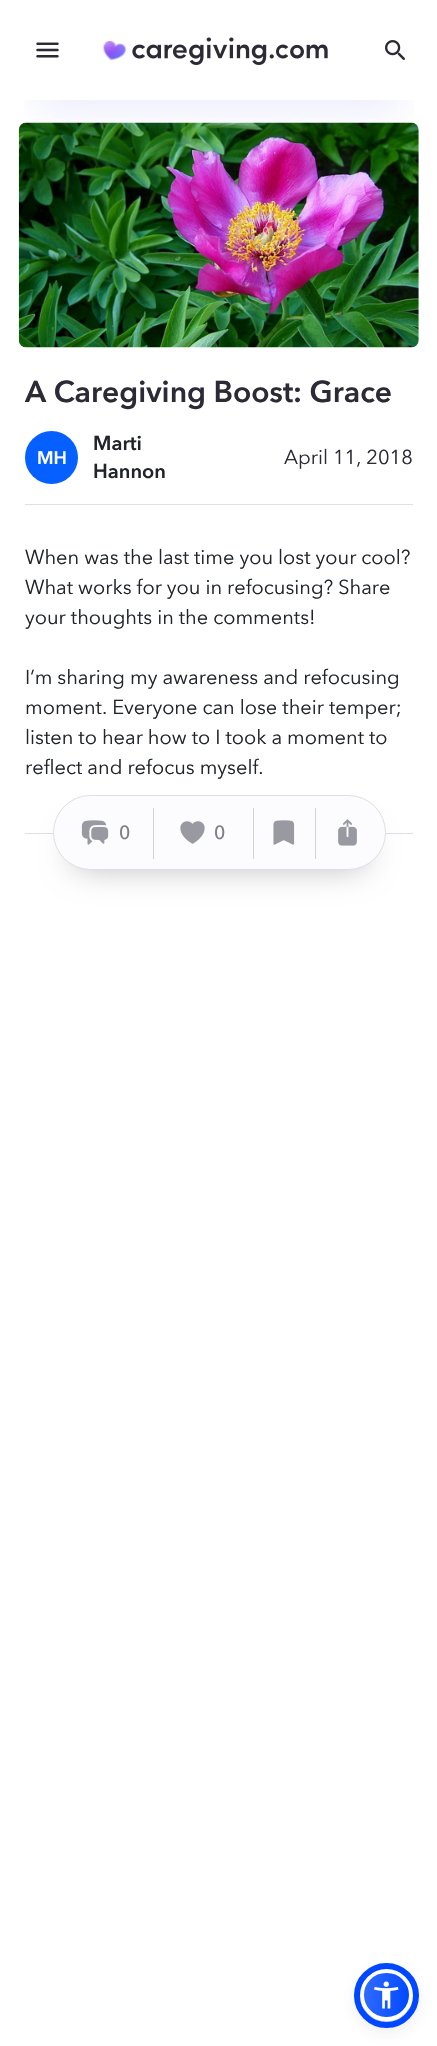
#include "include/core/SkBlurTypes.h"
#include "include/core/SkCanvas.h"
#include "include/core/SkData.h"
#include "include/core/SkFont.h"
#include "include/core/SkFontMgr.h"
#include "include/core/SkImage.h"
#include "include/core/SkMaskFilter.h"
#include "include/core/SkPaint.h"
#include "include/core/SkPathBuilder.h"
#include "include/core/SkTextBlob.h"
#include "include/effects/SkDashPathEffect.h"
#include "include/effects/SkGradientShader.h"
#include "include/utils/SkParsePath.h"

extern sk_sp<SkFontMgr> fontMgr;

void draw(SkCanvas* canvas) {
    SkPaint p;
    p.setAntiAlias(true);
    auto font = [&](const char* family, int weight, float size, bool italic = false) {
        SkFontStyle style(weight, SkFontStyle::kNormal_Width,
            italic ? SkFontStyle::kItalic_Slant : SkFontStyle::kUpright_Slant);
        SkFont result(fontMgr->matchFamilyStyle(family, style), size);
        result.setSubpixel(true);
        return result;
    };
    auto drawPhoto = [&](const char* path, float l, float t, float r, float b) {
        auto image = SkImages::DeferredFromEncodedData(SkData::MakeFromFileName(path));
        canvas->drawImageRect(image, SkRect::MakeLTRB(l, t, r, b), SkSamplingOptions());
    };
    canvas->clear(0xFFFFFFFF);
    drawPhoto("media/5.png", 18, 122, 419, 348);
    canvas->save();
    canvas->clipRect(SkRect::MakeLTRB(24, 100, 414, 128));
    p.setColor(0x334E61ED);
    p.setMaskFilter(SkMaskFilter::MakeBlur(kNormal_SkBlurStyle, 20));
    canvas->drawRect(SkRect::MakeLTRB(38, 78, 400, 103), p);
    p.setMaskFilter(nullptr);
    canvas->restore();
    drawPhoto("media/1.png", 36, 42, 59, 58);
    drawPhoto("media/2.png", 103, 40, 127, 61);
    drawPhoto("media/3.png", 132, 37, 328, 65);
    drawPhoto("media/4.png", 385, 40, 405, 60);
    auto font1 = font("Avenir Next", 600, 30);
    p.setColor(0xFF2B2A35);
    canvas->drawString("A Caregiving Boost: Grace", 25, 402, font1, p);
    p.setColor(0xFF0560FF);
    canvas->drawCircle(51.5f, 457.5f, 26.5f, p);
    auto font2 = font("Avenir Next", 600, 18);
    p.setColor(0xFFFFFFFF);
    canvas->drawString("MH", 37, 464, font2, p);
    auto font3 = font("Avenir Next", 600, 20);
    p.setColor(0xFF212529);
    canvas->drawString("Marti", 93, 450, font3, p);
    canvas->drawString("Hannon", 93, 478, font3, p);
    auto font4 = font("Avenir Next", 400, 20);
    p.setColor(0xFF2B2A35);
    canvas->drawString("April 11, 2018", 284, 464, font4, p);
    p.setColor(0xFFDDDFE5);
    canvas->drawRect(SkRect::MakeLTRB(25, 504, 413, 505), p);
    p.setColor(0xFF212529);
    {
        const struct { const char* s; float x, y; } items[] = {
            {"When was the last time you lost your cool?", 25, 564},
            {"What works for you in refocusing? Share", 25, 594},
            {"your thoughts in the comments!", 25, 624},
            {"I’m sharing my awareness and refocusing", 25, 684},
            {"moment. Everyone can lose their temper;", 25, 714},
            {"listen to hear how to I took a moment to", 25, 744},
            {"reflect and refocus myself.", 25, 774},
        };
        for (auto [s, x, y] : items) {
            canvas->drawString(s, x, y, font4, p);
        }
    }
    p.setColor(0xFFDDDFE5);
    canvas->drawRect(SkRect::MakeLTRB(25, 833, 413, 834), p);
    p.setColor(0x40000000);
    p.setMaskFilter(SkMaskFilter::MakeBlur(kNormal_SkBlurStyle, 15.5f));
    canvas->drawRoundRect(SkRect::MakeLTRB(71, 831, 368, 869), 19, 19, p);
    p.setMaskFilter(nullptr);
    p.setColor(0xFFFCFCFF);
    canvas->drawRoundRect(SkRect::MakeLTRB(53.5f, 795.5f, 385.5f, 869.5f), 37, 37, p);
    p.setStyle(SkPaint::kStroke_Style);
    p.setStrokeWidth(1);
    p.setColor(0xFFDDDFE5);
    canvas->drawRoundRect(SkRect::MakeLTRB(53.5f, 795.5f, 385.5f, 869.5f), 37, 37, p);
    p.setStyle(SkPaint::kFill_Style);
    p.setColor(0xFFD2D2D7);
    canvas->drawRect(SkRect::MakeLTRB(153, 808, 154, 859), p);
    drawPhoto("media/6.png", 81, 820, 109, 845);
    auto font5 = font("Avenir Next", 500, 19);
    p.setColor(0xFF7F7E86);
    canvas->drawString("0", 119, 839, font5, p);
    p.setColor(0xFFD2D2D7);
    canvas->drawRect(SkRect::MakeLTRB(253, 808, 254, 859), p);
    drawPhoto("media/7.png", 180, 821, 205, 844);
    p.setColor(0xFF7F7E86);
    canvas->drawString("0", 214, 839, font5, p);
    p.setColor(0xFFD2D2D7);
    canvas->drawRect(SkRect::MakeLTRB(315, 808, 316, 859), p);
    drawPhoto("media/8.png", 273, 820, 295, 845);
    drawPhoto("media/9.png", 338, 819, 357, 846);
    p.setColor(0x335D6494);
    p.setMaskFilter(SkMaskFilter::MakeBlur(kNormal_SkBlurStyle, 2.5f));
    canvas->drawRoundRect(SkRect::MakeLTRB(360, 1971, 413, 2024), 26.5f, 26.5f, p);
    p.setMaskFilter(nullptr);
    p.setColor(0x26252C61);
    p.setMaskFilter(SkMaskFilter::MakeBlur(kNormal_SkBlurStyle, 9.5f));
    canvas->drawRoundRect(SkRect::MakeLTRB(360, 1975, 413, 2028), 26.5f, 26.5f, p);
    p.setMaskFilter(nullptr);
    canvas->save();
    canvas->clipPath(SkPathBuilder().moveTo(386, 1969).lineTo(387, 1969).cubicTo(401.5f, 1969, 413, 1980.5f, 413, 1995).cubicTo(413, 2009.5f, 401.5f, 2021, 387, 2021).lineTo(386, 2021).cubicTo(371.5f, 2021, 360, 2009.5f, 360, 1995).cubicTo(360, 1980.5f, 371.5f, 1969, 386, 1969).close().detach(), true);
    {
        const SkColor colors[] = {0xFF326CFF, 0xFF0048FF};
        const float stops[] = {0, 1};
        const SkPoint ends[] = {{362, 1992}, {411, 1998}};
        p.setShader(SkGradientShader::MakeLinear(ends, colors, stops, 2, SkTileMode::kClamp));
        p.setAlpha(255);
    }
    canvas->drawRect(SkRect::MakeLTRB(364, 1973, 409, 2018), p);
    canvas->restore();
    p.setStyle(SkPaint::kStroke_Style);
    p.setStrokeWidth(4);
    p.setShader(nullptr);
    p.setColor(0xFFFFFFFF);
    canvas->drawRoundRect(SkRect::MakeLTRB(362, 1971, 411, 2019), 24, 24, p);
    p.setStrokeWidth(6);
    p.setColor(0xFF0048FF);
    canvas->drawCircle(386.5f, 1995.5f, 29.5f, p);
    drawPhoto("media/10.png", 374, 1981, 399, 2009);
}
